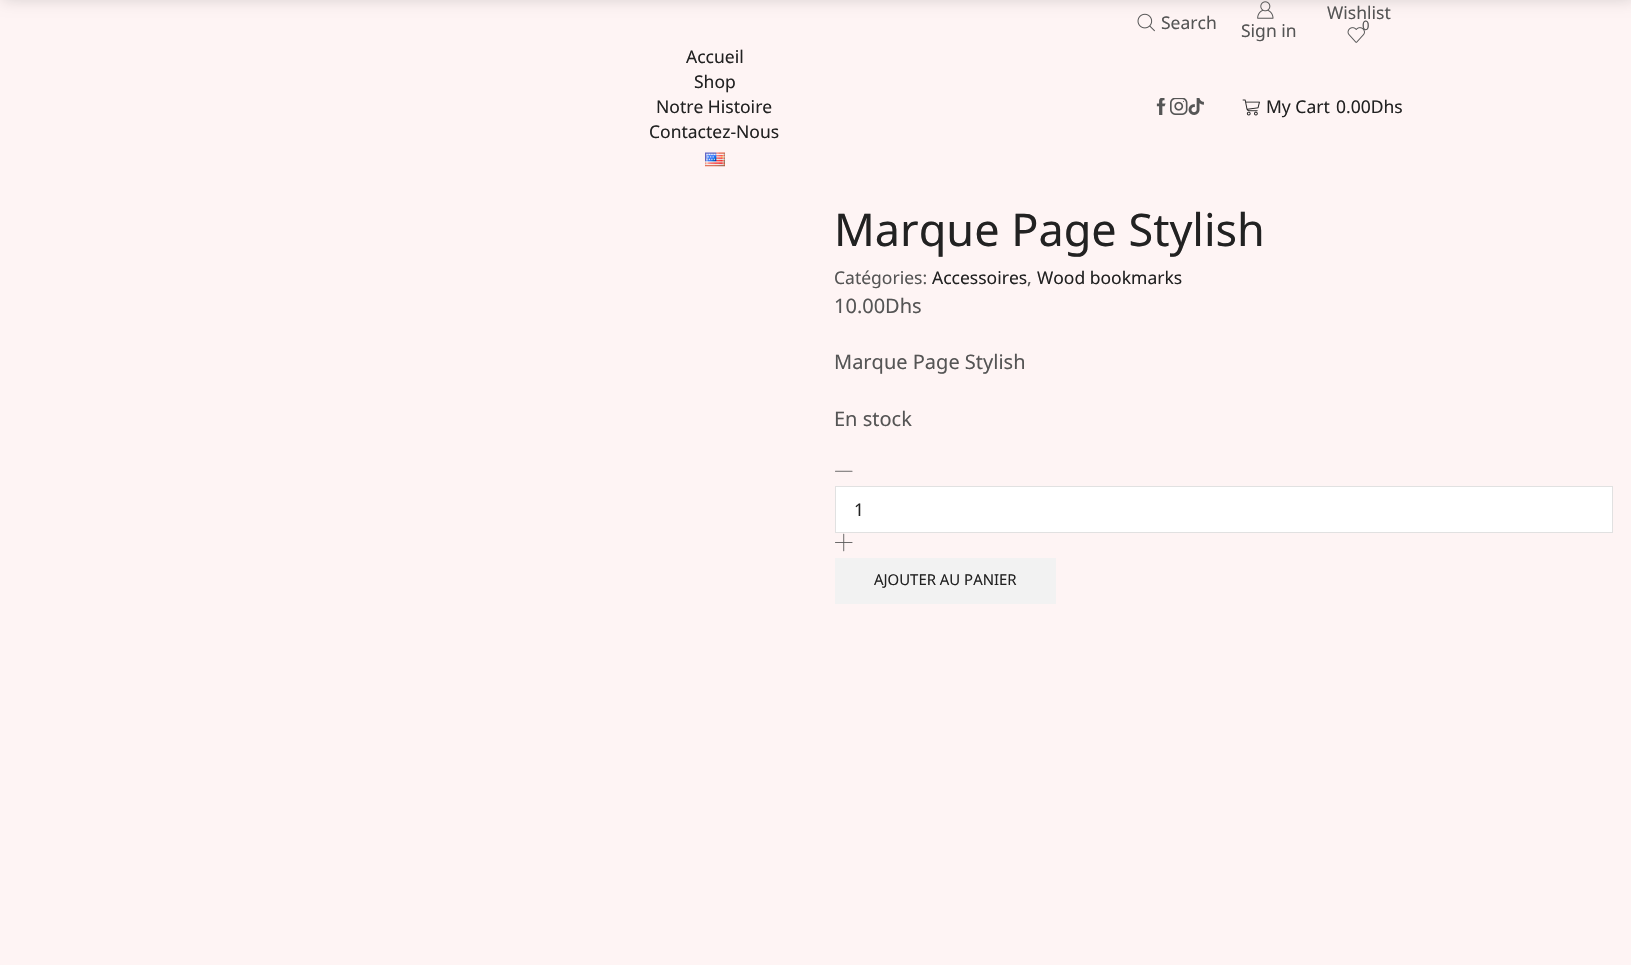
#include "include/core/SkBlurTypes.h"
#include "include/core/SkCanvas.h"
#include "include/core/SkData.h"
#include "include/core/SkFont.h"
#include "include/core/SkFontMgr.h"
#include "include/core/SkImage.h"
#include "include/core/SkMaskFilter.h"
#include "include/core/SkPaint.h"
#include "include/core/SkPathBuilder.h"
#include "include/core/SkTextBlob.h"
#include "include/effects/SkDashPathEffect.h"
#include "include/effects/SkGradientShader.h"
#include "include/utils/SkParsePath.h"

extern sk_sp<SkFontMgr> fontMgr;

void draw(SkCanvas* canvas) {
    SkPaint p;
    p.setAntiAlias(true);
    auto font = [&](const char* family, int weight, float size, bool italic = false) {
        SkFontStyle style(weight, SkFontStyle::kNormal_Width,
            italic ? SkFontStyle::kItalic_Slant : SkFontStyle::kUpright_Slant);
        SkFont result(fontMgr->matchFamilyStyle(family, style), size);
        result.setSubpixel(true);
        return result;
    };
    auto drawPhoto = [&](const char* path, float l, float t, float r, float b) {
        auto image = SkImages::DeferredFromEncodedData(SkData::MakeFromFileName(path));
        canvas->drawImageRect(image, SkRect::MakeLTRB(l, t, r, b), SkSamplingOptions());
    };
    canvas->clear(0xFFFEF4F4);
    p.setColor(0x26000000);
    p.setMaskFilter(SkMaskFilter::MakeBlur(kNormal_SkBlurStyle, 7.5f));
    canvas->drawRect(SkRect::MakeLTRB(3, -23, 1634, 0), p);
    p.setMaskFilter(nullptr);
    drawPhoto("media/1.png", 1137, 13, 1155, 32);
    auto font1 = font("Noto Sans", 400, 17.5f);
    p.setColor(0xFF555555);
    canvas->drawString("Search", 1161, 29, font1, p);
    canvas->drawString("Wishlist", 1327, 19, font1, p);
    drawPhoto("media/2.png", 1347, 27, 1365, 43);
    auto font2 = font("Noto Sans", 400, 13);
    canvas->drawString("0", 1362, 30, font2, p);
    drawPhoto("media/3.png", 1257, 1, 1274, 19);
    canvas->drawString("Sign in", 1241, 37, font1, p);
    p.setColor(0xFF222222);
    {
        const struct { const char* s; float x, y; } items[] = {
            {"Accueil", 686, 63},
            {"Shop", 694, 88},
            {"Notre Histoire", 656, 113},
            {"Contactez-Nous", 649, 138},
        };
        for (auto [s, x, y] : items) {
            canvas->drawString(s, x, y, font1, p);
        }
    }
    drawPhoto("media/4.png", 705, 152, 725, 167);
    drawPhoto("media/5.png", 1156, 98, 1166, 115);
    drawPhoto("media/6.png", 1170, 98, 1188, 115);
    drawPhoto("media/7.png", 1188, 98, 1204, 115);
    drawPhoto("media/8.png", 1242, 99, 1260, 116);
    canvas->drawString("My Cart", 1266, 113, font1, p);
    canvas->drawString("0.00Dhs", 1336, 113, font1, p);
    auto font3 = font("Noto Sans", 400, 45);
    canvas->drawString("Marque Page Stylish", 834, 246, font3, p);
    p.setColor(0xFF555555);
    canvas->drawString("Catégories:", 834, 284, font1, p);
    p.setColor(0xFF222222);
    canvas->drawString("Accessoires", 932, 284, font1, p);
    p.setColor(0xFF555555);
    canvas->drawString(",", 1027, 284, font1, p);
    p.setColor(0xFF222222);
    canvas->drawString("Wood bookmarks", 1037, 284, font1, p);
    auto font4 = font("Noto Sans", 400, 20);
    p.setColor(0xFF555555);
    {
        const struct { const char* s; float x, y; } items[] = {
            {"10.00Dhs", 834, 313},
            {"Marque Page Stylish", 834, 369},
            {"En stock", 834, 426},
        };
        for (auto [s, x, y] : items) {
            canvas->drawString(s, x, y, font4, p);
        }
    }
    drawPhoto("media/9.png", 835, 470, 853, 472);
    p.setColor(0xFFFFFFFF);
    canvas->drawRect(SkRect::MakeLTRB(835.5f, 486.5f, 1612.5f, 532.5f), p);
    p.setStyle(SkPaint::kStroke_Style);
    p.setStrokeWidth(1);
    p.setColor(0xFFE1E1E1);
    canvas->drawRect(SkRect::MakeLTRB(835.5f, 486.5f, 1612.5f, 532.5f), p);
    p.setStyle(SkPaint::kFill_Style);
    p.setColor(0xFF222222);
    canvas->drawString("1", 854, 516, font1, p);
    drawPhoto("media/10.png", 835, 533, 853, 552);
    p.setColor(0xFFF2F2F2);
    canvas->drawRect(SkRect::MakeLTRB(835, 558, 1056, 604), p);
    auto font5 = font("Noto Sans", 400, 14.9f);
    p.setColor(0xFF222222);
    canvas->drawString("AJOUTER AU PANIER", 874, 585, font5, p);
}
